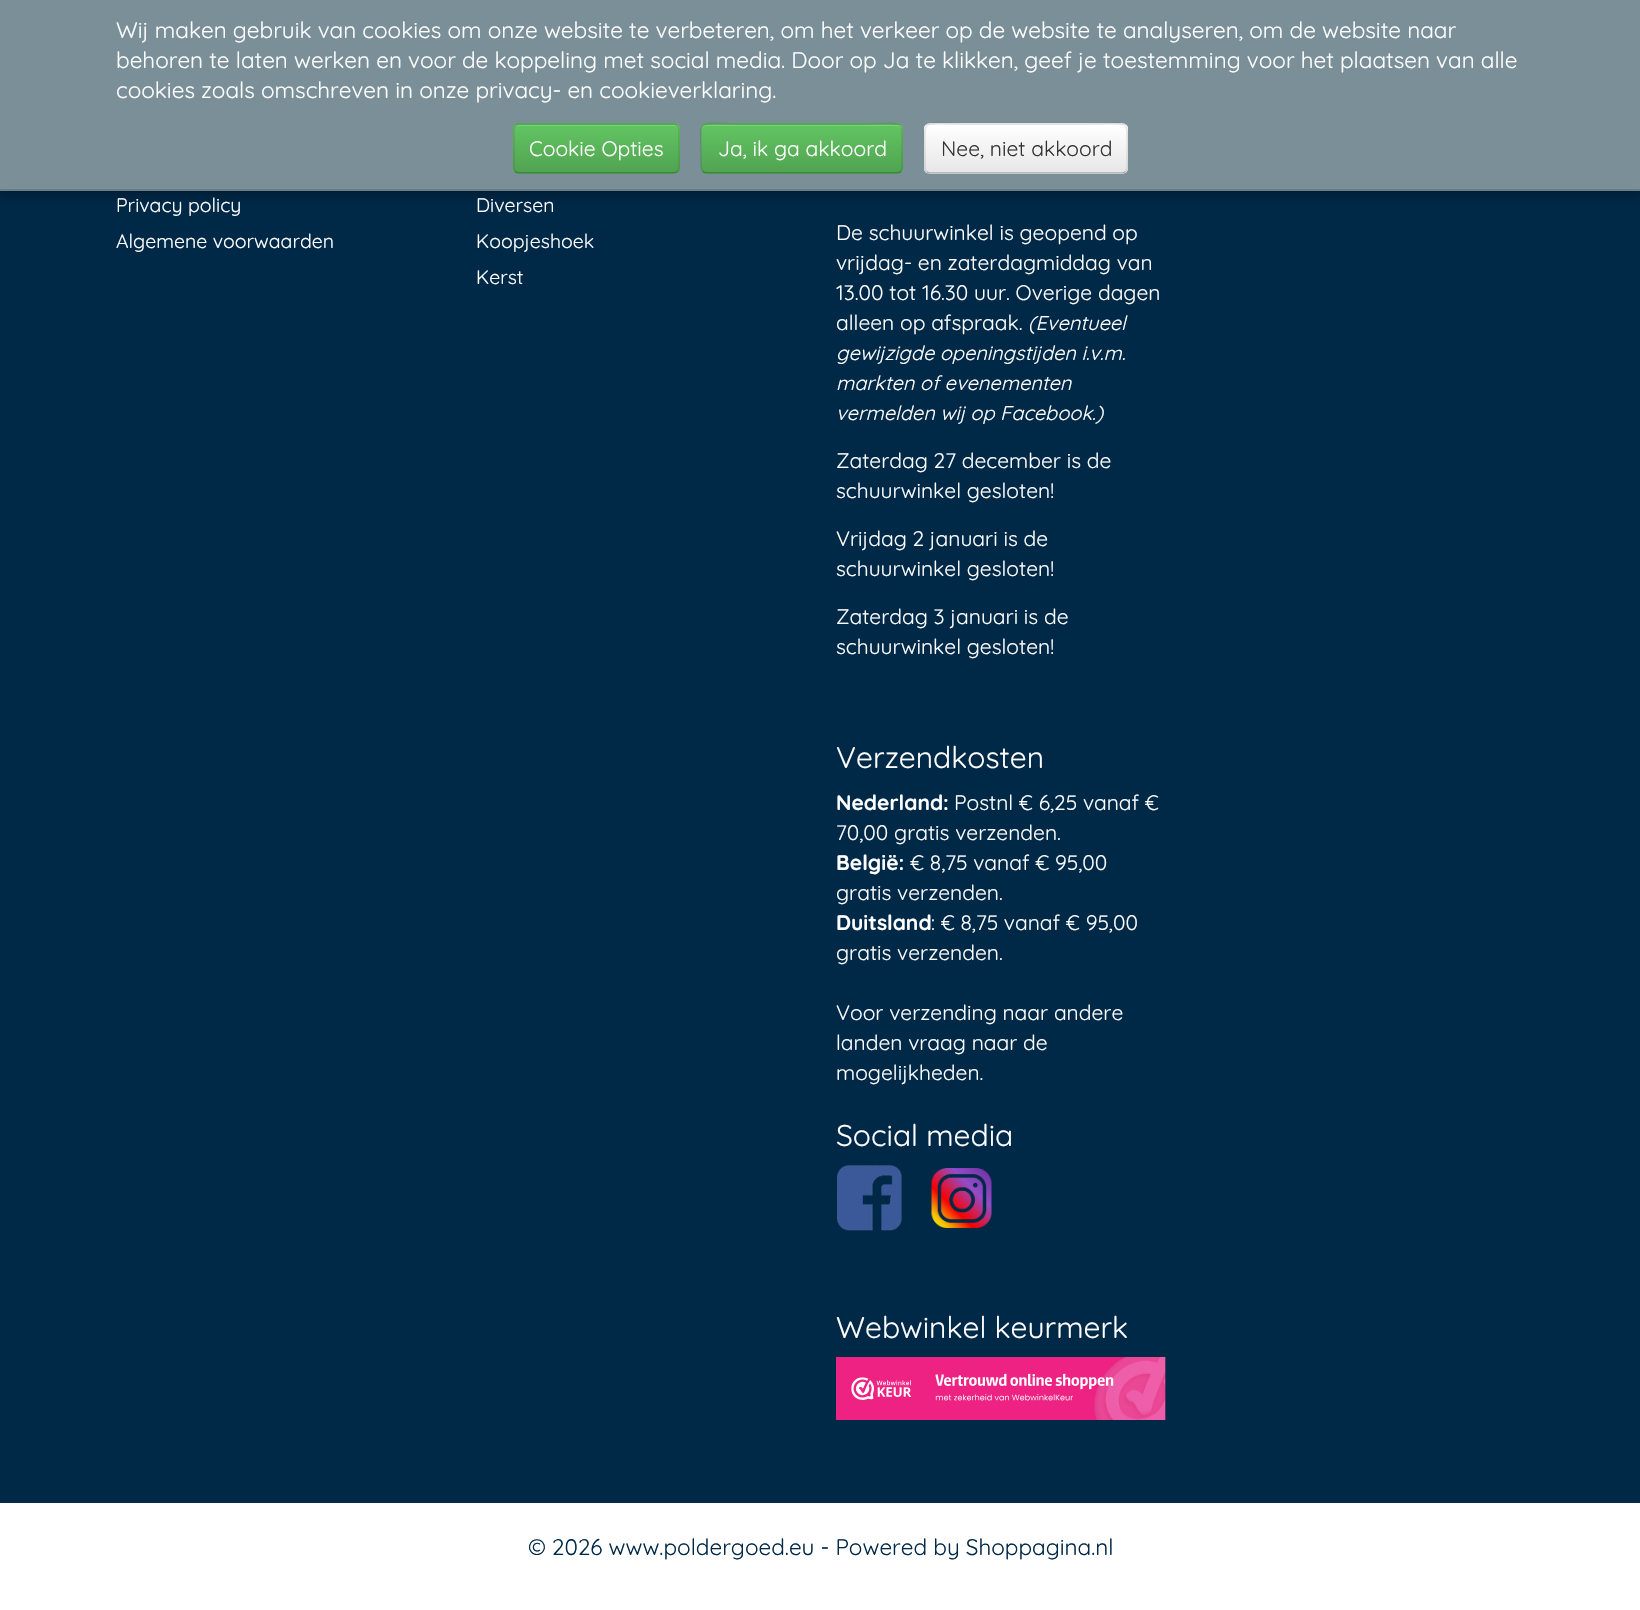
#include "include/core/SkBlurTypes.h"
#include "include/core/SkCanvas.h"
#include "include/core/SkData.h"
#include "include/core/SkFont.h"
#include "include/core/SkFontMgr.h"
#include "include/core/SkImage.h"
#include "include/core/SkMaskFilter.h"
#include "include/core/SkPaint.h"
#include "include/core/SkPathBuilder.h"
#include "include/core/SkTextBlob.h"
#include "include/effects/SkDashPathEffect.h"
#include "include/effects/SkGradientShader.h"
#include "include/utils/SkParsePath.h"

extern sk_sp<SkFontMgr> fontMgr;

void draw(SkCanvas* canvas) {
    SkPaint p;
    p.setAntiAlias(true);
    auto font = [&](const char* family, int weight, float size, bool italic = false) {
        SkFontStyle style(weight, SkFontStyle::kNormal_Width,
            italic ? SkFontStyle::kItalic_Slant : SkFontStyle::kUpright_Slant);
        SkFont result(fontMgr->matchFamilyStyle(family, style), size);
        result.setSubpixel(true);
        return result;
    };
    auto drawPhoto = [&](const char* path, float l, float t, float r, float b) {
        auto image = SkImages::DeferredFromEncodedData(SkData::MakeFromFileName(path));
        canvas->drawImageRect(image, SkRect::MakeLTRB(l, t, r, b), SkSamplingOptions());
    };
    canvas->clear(0xFFFFFFFF);
    p.setColor(0xFF002847);
    canvas->drawRect(SkRect::MakeLTRB(0, 191, 1640, 1503), p);
    p.setColor(0x4D000000);
    p.setMaskFilter(SkMaskFilter::MakeBlur(kNormal_SkBlurStyle, 5));
    canvas->drawRect(SkRect::MakeLTRB(0, 5, 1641, 195), p);
    p.setMaskFilter(nullptr);
    p.setColor(0xFF7A8F98);
    canvas->drawRect(SkRect::MakeLTRB(0, 0, 1640, 189), p);
    p.setColor(0xFF697E87);
    canvas->drawRect(SkRect::MakeLTRB(0, 189, 1640, 191), p);
    auto font1 = font("Quicksand", 400, 22.5f);
    p.setColor(0xFFFFFFFF);
    {
        const struct { const char* s; float x, y; } items[] = {
            {"Wij maken gebruik van cookies om onze website te verbeteren, om het verkeer op de website te analyseren, om de website naar", 116, 38},
            {"behoren te laten werken en voor de koppeling met social media. Door op Ja te klikken, geef je toestemming voor het plaatsen van alle", 116, 68},
            {"cookies zoals omschreven in onze privacy- en cookieverklaring.", 116, 98},
        };
        for (auto [s, x, y] : items) {
            canvas->drawString(s, x, y, font1, p);
        }
    }
    p.setColor(0xFF5BB75B);
    canvas->drawRoundRect(SkRect::MakeLTRB(513, 123, 680, 174), 6, 6, p);
    canvas->save();
    canvas->clipPath(SkPathBuilder().moveTo(519, 123).lineTo(674, 123).cubicTo(677.5f, 123, 680, 125.5f, 680, 129).lineTo(680, 168).cubicTo(680, 171.5f, 677.5f, 174, 674, 174).lineTo(519, 174).cubicTo(515.5f, 174, 513, 171.5f, 513, 168).lineTo(513, 129).cubicTo(513, 125.5f, 515.5f, 123, 519, 123).close().detach(), true);
    {
        const SkColor colors[] = {0xFF62C462, 0xFF51A351};
        const float stops[] = {0, 1};
        const SkPoint ends[] = {{596, 125}, {596, 173}};
        p.setShader(SkGradientShader::MakeLinear(ends, colors, stops, 2, SkTileMode::kClamp));
        p.setAlpha(255);
    }
    canvas->drawRect(SkRect::MakeLTRB(513, 125, 680, 173), p);
    canvas->restore();
    p.setShader(nullptr);
    p.setColor(0xFF81D081);
    canvas->drawPath(SkPathBuilder().moveTo(519, 126).lineTo(674, 126).cubicTo(676, 126, 678, 128, 678, 130).cubicTo(678, 127, 676, 125, 673, 125).lineTo(520, 125).cubicTo(518, 125, 517, 126, 516, 127).close().detach(), p);
    p.setStyle(SkPaint::kStroke_Style);
    p.setStrokeWidth(1.5f);
    p.setColor(0x40000000);
    canvas->drawPath(SkPathBuilder().moveTo(677, 171.5f).cubicTo(676, 172.5f, 675, 173, 673.5f, 173).lineTo(519, 173).cubicTo(517.5f, 173, 516.5f, 172.5f, 515.5f, 171.5f).detach(), p);
    p.setColor(0x1A000000);
    canvas->drawPath(SkPathBuilder().moveTo(515.5f, 171.5f).cubicTo(514.5f, 170.5f, 514, 169.5f, 514, 168).lineTo(514, 129).cubicTo(514, 127.5f, 514.5f, 126.5f, 515.5f, 125.5f).cubicTo(516.5f, 124.5f, 517.5f, 124, 519, 124).lineTo(673.5f, 124).cubicTo(675, 124, 676, 124.5f, 677, 125.5f).cubicTo(678, 126.5f, 679, 127.5f, 679, 129).lineTo(679, 168).cubicTo(679, 169.5f, 678, 170.5f, 677, 171.5f).detach(), p);
    auto font2 = font("Quicksand", 400, 21);
    p.setStyle(SkPaint::kFill_Style);
    p.setColor(0xFFFFFFFF);
    canvas->drawString("Cookie Opties", 529, 156, font2, p);
    p.setColor(0xFF5BB75B);
    canvas->drawRoundRect(SkRect::MakeLTRB(701, 123, 903, 174), 6, 6, p);
    canvas->save();
    canvas->clipPath(SkPathBuilder().moveTo(707, 123).lineTo(897, 123).cubicTo(900.5f, 123, 903, 125.5f, 903, 129).lineTo(903, 168).cubicTo(903, 171.5f, 900.5f, 174, 897, 174).lineTo(707, 174).cubicTo(703.5f, 174, 701, 171.5f, 701, 168).lineTo(701, 129).cubicTo(701, 125.5f, 703.5f, 123, 707, 123).close().detach(), true);
    {
        const SkColor colors[] = {0xFF62C462, 0xFF51A351};
        const float stops[] = {0, 1};
        const SkPoint ends[] = {{802, 125}, {802, 173}};
        p.setShader(SkGradientShader::MakeLinear(ends, colors, stops, 2, SkTileMode::kClamp));
        p.setAlpha(255);
    }
    canvas->drawRect(SkRect::MakeLTRB(701, 125, 903, 173), p);
    canvas->restore();
    p.setShader(nullptr);
    p.setColor(0xFF81D081);
    canvas->drawPath(SkPathBuilder().moveTo(706, 126).lineTo(897, 126).cubicTo(899, 126, 902, 128, 902, 130).cubicTo(902, 127, 900, 125, 897, 125).lineTo(707, 125).cubicTo(704, 125, 702, 127, 702, 130).cubicTo(702, 128, 704, 126, 706, 126).close().detach(), p);
    p.setStyle(SkPaint::kStroke_Style);
    p.setColor(0x40000000);
    canvas->drawPath(SkPathBuilder().moveTo(900.5f, 171.5f).cubicTo(899.5f, 172.5f, 898.5f, 173, 897, 173).lineTo(706.5f, 173).cubicTo(705, 173, 704, 172.5f, 703, 171.5f).detach(), p);
    p.setColor(0x1A000000);
    canvas->drawPath(SkPathBuilder().moveTo(703, 171.5f).cubicTo(700.5f, 169, 701, 164.5f, 701, 161.5f).lineTo(701, 155).cubicTo(701, 116, 695, 124, 738, 124).lineTo(865, 124).cubicTo(908.5f, 124, 902, 116, 902, 155).lineTo(902, 161.5f).cubicTo(902, 164.5f, 903, 169, 900.5f, 171.5f).detach(), p);
    p.setStyle(SkPaint::kFill_Style);
    p.setColor(0xFFFFFFFF);
    canvas->drawString("Ja, ik ga akkoord", 718, 156, font2, p);
    p.setColor(0xFFF5F5F5);
    canvas->drawRoundRect(SkRect::MakeLTRB(924, 123, 1128, 174), 6, 6, p);
    canvas->save();
    canvas->clipPath(SkPathBuilder().moveTo(930, 123).lineTo(1122, 123).cubicTo(1125.5f, 123, 1128, 125.5f, 1128, 129).lineTo(1128, 168).cubicTo(1128, 171.5f, 1125.5f, 174, 1122, 174).lineTo(930, 174).cubicTo(926.5f, 174, 924, 171.5f, 924, 168).lineTo(924, 129).cubicTo(924, 125.5f, 926.5f, 123, 930, 123).close().detach(), true);
    {
        const SkColor colors[] = {0xFFFFFFFF, 0xFFE6E6E6};
        const float stops[] = {0, 1};
        const SkPoint ends[] = {{1026, 125}, {1026, 173}};
        p.setShader(SkGradientShader::MakeLinear(ends, colors, stops, 2, SkTileMode::kClamp));
        p.setAlpha(255);
    }
    canvas->drawRect(SkRect::MakeLTRB(924, 125, 1128, 173), p);
    canvas->restore();
    p.setShader(nullptr);
    p.setColor(0x33FFFFFF);
    canvas->drawPath(SkPathBuilder().moveTo(930, 126).lineTo(1122, 126).cubicTo(1124, 126, 1126, 128, 1126, 130).lineTo(1126, 171).cubicTo(1127, 170, 1127, 169, 1127, 168).lineTo(1127, 130).cubicTo(1127, 127, 1125, 125, 1122, 125).lineTo(931, 125).cubicTo(928, 125, 926, 127, 926, 130).cubicTo(926, 128, 928, 126, 930, 126).close().detach(), p);
    p.setStyle(SkPaint::kStroke_Style);
    p.setColor(0x40000000);
    canvas->drawPath(SkPathBuilder().moveTo(1125.5f, 171.5f).cubicTo(1124.5f, 172.5f, 1123.5f, 173, 1122, 173).lineTo(930, 173).cubicTo(928.5f, 173, 927.5f, 172.5f, 926.5f, 171.5f).detach(), p);
    p.setColor(0x1A000000);
    canvas->drawPath(SkPathBuilder().moveTo(926.5f, 171.5f).cubicTo(924, 169, 925, 164.5f, 925, 161.5f).lineTo(925, 155).cubicTo(925, 116, 918.5f, 124, 962, 124).lineTo(1090, 124).cubicTo(1133.5f, 124, 1127, 116, 1127, 155).lineTo(1127, 161.5f).cubicTo(1127, 164.5f, 1128, 169, 1125.5f, 171.5f).detach(), p);
    p.setStyle(SkPaint::kFill_Style);
    p.setColor(0xFF333333);
    canvas->drawString("Nee, niet akkoord", 941, 156, font2, p);
    auto font3 = font("Quicksand", 400, 19.5f);
    p.setColor(0xFFFFFFFF);
    {
        const struct { const char* s; float x, y; } items[] = {
            {"Privacy policy", 116, 212},
            {"Algemene voorwaarden", 116, 248},
            {"Diversen", 476, 212},
            {"Koopjeshoek", 476, 248},
            {"Kerst", 476, 284},
        };
        for (auto [s, x, y] : items) {
            canvas->drawString(s, x, y, font3, p);
        }
    }
    {
        const struct { const char* s; float x, y; } items[] = {
            {"De schuurwinkel is geopend op", 836, 240},
            {"vrijdag- en zaterdagmiddag van", 836, 270},
            {"13.00 tot 16.30 uur. Overige dagen", 836, 300},
            {"alleen op afspraak.", 836, 330},
        };
        for (auto [s, x, y] : items) {
            canvas->drawString(s, x, y, font2, p);
        }
    }
    auto font4 = font("Quicksand", 400, 20, true);
    {
        const struct { const char* s; float x, y; } items[] = {
            {"(Eventueel", 1028, 330},
            {"gewijzigde openingstijden i.v.m.", 836, 360},
            {"markten of evenementen", 836, 390},
            {"vermelden wij op Facebook.)", 836, 420},
        };
        for (auto [s, x, y] : items) {
            canvas->drawString(s, x, y, font4, p);
        }
    }
    {
        const struct { const char* s; float x, y; } items[] = {
            {"Zaterdag 27 december is de", 836, 468},
            {"schuurwinkel gesloten!", 836, 498},
            {"Vrijdag 2 januari is de", 836, 546},
            {"schuurwinkel gesloten!", 836, 576},
            {"Zaterdag 3 januari is de", 836, 624},
            {"schuurwinkel gesloten!", 836, 654},
        };
        for (auto [s, x, y] : items) {
            canvas->drawString(s, x, y, font2, p);
        }
    }
    auto font5 = font("Quicksand", 400, 30);
    canvas->drawString("Verzendkosten", 836, 768, font5, p);
    auto font6 = font("Quicksand", 700, 21);
    canvas->drawString("Nederland:", 836, 810, font6, p);
    canvas->drawString("Postnl € 6,25 vanaf €", 954, 810, font2, p);
    canvas->drawString("70,00 gratis verzenden.", 836, 840, font2, p);
    canvas->drawString("België:", 836, 870, font6, p);
    canvas->drawString("€ 8,75 vanaf € 95,00", 910, 870, font2, p);
    canvas->drawString("gratis verzenden.", 836, 900, font2, p);
    canvas->drawString("Duitsland", 836, 930, font6, p);
    {
        const struct { const char* s; float x, y; } items[] = {
            {": € 8,75 vanaf € 95,00", 931, 930},
            {"gratis verzenden.", 836, 960},
            {"Voor verzending naar andere", 836, 1020},
            {"landen vraag naar de", 836, 1050},
            {"mogelijkheden.", 836, 1080},
        };
        for (auto [s, x, y] : items) {
            canvas->drawString(s, x, y, font2, p);
        }
    }
    canvas->drawString("Social media", 836, 1146, font5, p);
    drawPhoto("media/1.png", 837, 1165, 902, 1231);
    drawPhoto("media/2.png", 931, 1168, 992, 1228);
    canvas->drawString("Webwinkel keurmerk", 836, 1338, font5, p);
    drawPhoto("media/3.png", 836, 1357, 1166, 1420);
    p.setColor(0xFF002847);
    canvas->drawString("© 2026 www.poldergoed.eu - Powered by Shoppagina.nl", 528, 1555, font1, p);
}
